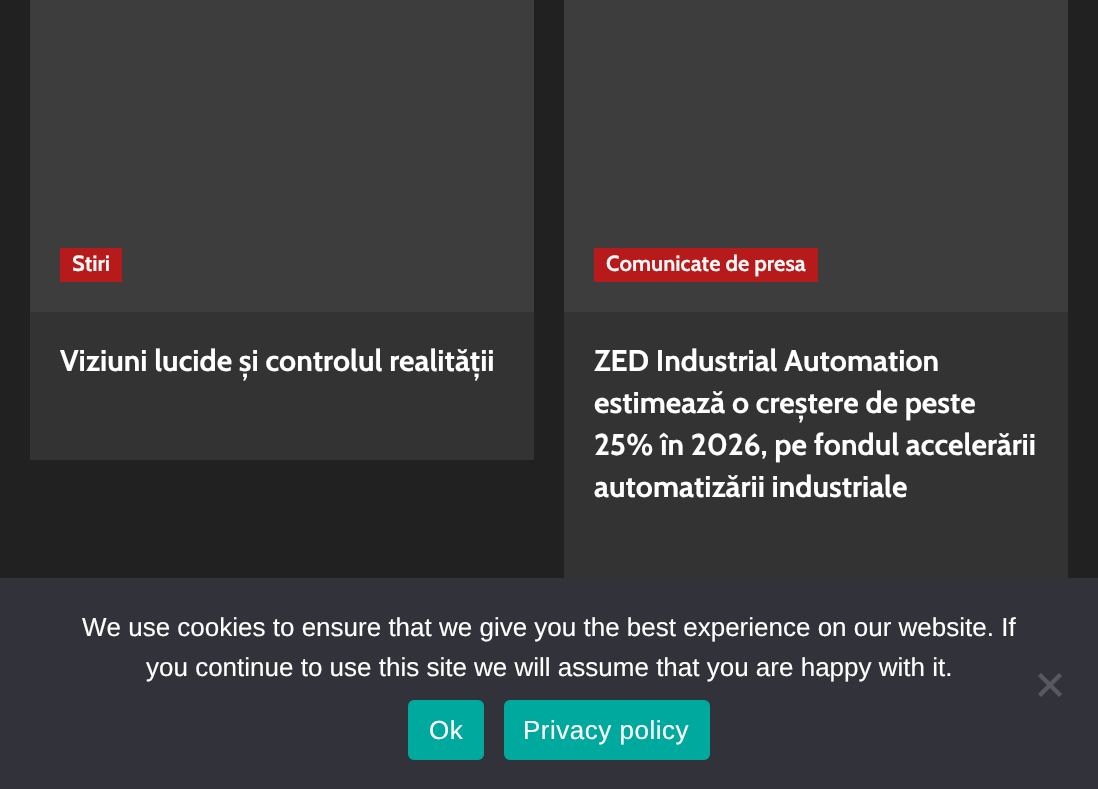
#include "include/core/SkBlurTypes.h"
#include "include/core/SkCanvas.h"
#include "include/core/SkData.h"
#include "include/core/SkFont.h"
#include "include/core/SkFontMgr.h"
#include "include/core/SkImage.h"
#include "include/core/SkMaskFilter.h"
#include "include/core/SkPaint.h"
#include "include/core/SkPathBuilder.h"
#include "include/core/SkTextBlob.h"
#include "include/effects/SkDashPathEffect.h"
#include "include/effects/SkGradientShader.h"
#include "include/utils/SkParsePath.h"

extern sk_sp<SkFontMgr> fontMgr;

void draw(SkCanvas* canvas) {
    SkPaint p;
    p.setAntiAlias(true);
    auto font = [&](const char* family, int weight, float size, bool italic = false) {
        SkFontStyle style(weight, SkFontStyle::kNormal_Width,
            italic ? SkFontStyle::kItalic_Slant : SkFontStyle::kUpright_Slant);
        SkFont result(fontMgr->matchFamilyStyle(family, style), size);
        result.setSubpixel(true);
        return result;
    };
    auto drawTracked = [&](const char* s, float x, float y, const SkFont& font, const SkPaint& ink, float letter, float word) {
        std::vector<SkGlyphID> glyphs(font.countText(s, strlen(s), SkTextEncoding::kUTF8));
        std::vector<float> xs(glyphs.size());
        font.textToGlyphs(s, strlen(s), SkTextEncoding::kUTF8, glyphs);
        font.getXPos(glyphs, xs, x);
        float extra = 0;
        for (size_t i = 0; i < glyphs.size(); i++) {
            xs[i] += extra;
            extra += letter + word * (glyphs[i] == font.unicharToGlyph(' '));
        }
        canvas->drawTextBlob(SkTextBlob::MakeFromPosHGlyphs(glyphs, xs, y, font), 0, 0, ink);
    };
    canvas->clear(0xFF212121);
    {
        const struct { float l, t, r, b; SkColor color; } items[] = {
            {30, 312, 534, 460, 0xFF333333},
            {30, 0, 534, 312, 0xFF3D3D3D},
            {60, 248, 122, 282, 0xFFB61A1A},
        };
        for (auto [l, t, r, b, color] : items) {
            p.setColor(color);
            canvas->drawRect(SkRect::MakeLTRB(l, t, r, b), p);
        }
    }
    auto font1 = font("Cabin", 700, 22);
    p.setColor(0xFFF7F7F7);
    canvas->drawString("Stiri", 72, 271, font1, p);
    auto font2 = font("Cabin", 700, 30);
    p.setColor(0xFFFFFFFF);
    canvas->drawString("Viziuni lucide și controlul realității", 60, 371, font2, p);
    {
        const struct { float l, t, r, b; SkColor color; } items[] = {
            {564, 312, 1068, 578, 0xFF333333},
            {564, 0, 1068, 312, 0xFF3D3D3D},
            {594, 248, 818, 282, 0xFFB61A1A},
        };
        for (auto [l, t, r, b, color] : items) {
            p.setColor(color);
            canvas->drawRect(SkRect::MakeLTRB(l, t, r, b), p);
        }
    }
    p.setColor(0xFFF7F7F7);
    canvas->drawString("Comunicate de presa", 606, 271, font1, p);
    p.setColor(0xFFFFFFFF);
    {
        const struct { const char* s; float x, y; } items[] = {
            {"ZED Industrial Automation", 594, 371},
            {"estimează o creștere de peste", 594, 413},
            {"25% în 2026, pe fondul accelerării", 594, 455},
            {"automatizării industriale", 594, 497},
        };
        for (auto [s, x, y] : items) {
            canvas->drawString(s, x, y, font2, p);
        }
    }
    p.setColor(0xFF32323A);
    canvas->drawRect(SkRect::MakeLTRB(0, 578, 1098, 789), p);
    auto font3 = font("Liberation Sans", 400, 26);
    p.setColor(0xFFFFFFFF);
    canvas->drawString("We use cookies to ensure that we give you the best experience on our website. If", 82, 636, font3, p);
    canvas->drawString("you continue to use this site we will assume that you are happy with it.", 146, 676, font3, p);
    p.setColor(0xFF59595D);
    canvas->drawPath(SkPathBuilder().moveTo(1059, 673).lineTo(1062, 676).lineTo(1041, 697).lineTo(1038, 694).close().detach(), p);
    canvas->drawPath(SkPathBuilder().moveTo(1038, 676).lineTo(1041, 673).lineTo(1062, 694).lineTo(1059, 697).close().detach(), p);
    p.setColor(0xFF00A99D);
    canvas->drawRoundRect(SkRect::MakeLTRB(408, 700, 484, 760), 6, 6, p);
    p.setColor(0xFFFFFFFF);
    drawTracked("Ok", 429, 739, font3, p, 0.5f, 0);
    p.setColor(0xFF00A99D);
    canvas->drawRoundRect(SkRect::MakeLTRB(504, 700, 710, 760), 6, 6, p);
    p.setColor(0xFFFFFFFF);
    drawTracked("Privacy policy", 523, 739, font3, p, 0.5f, 0);
}
